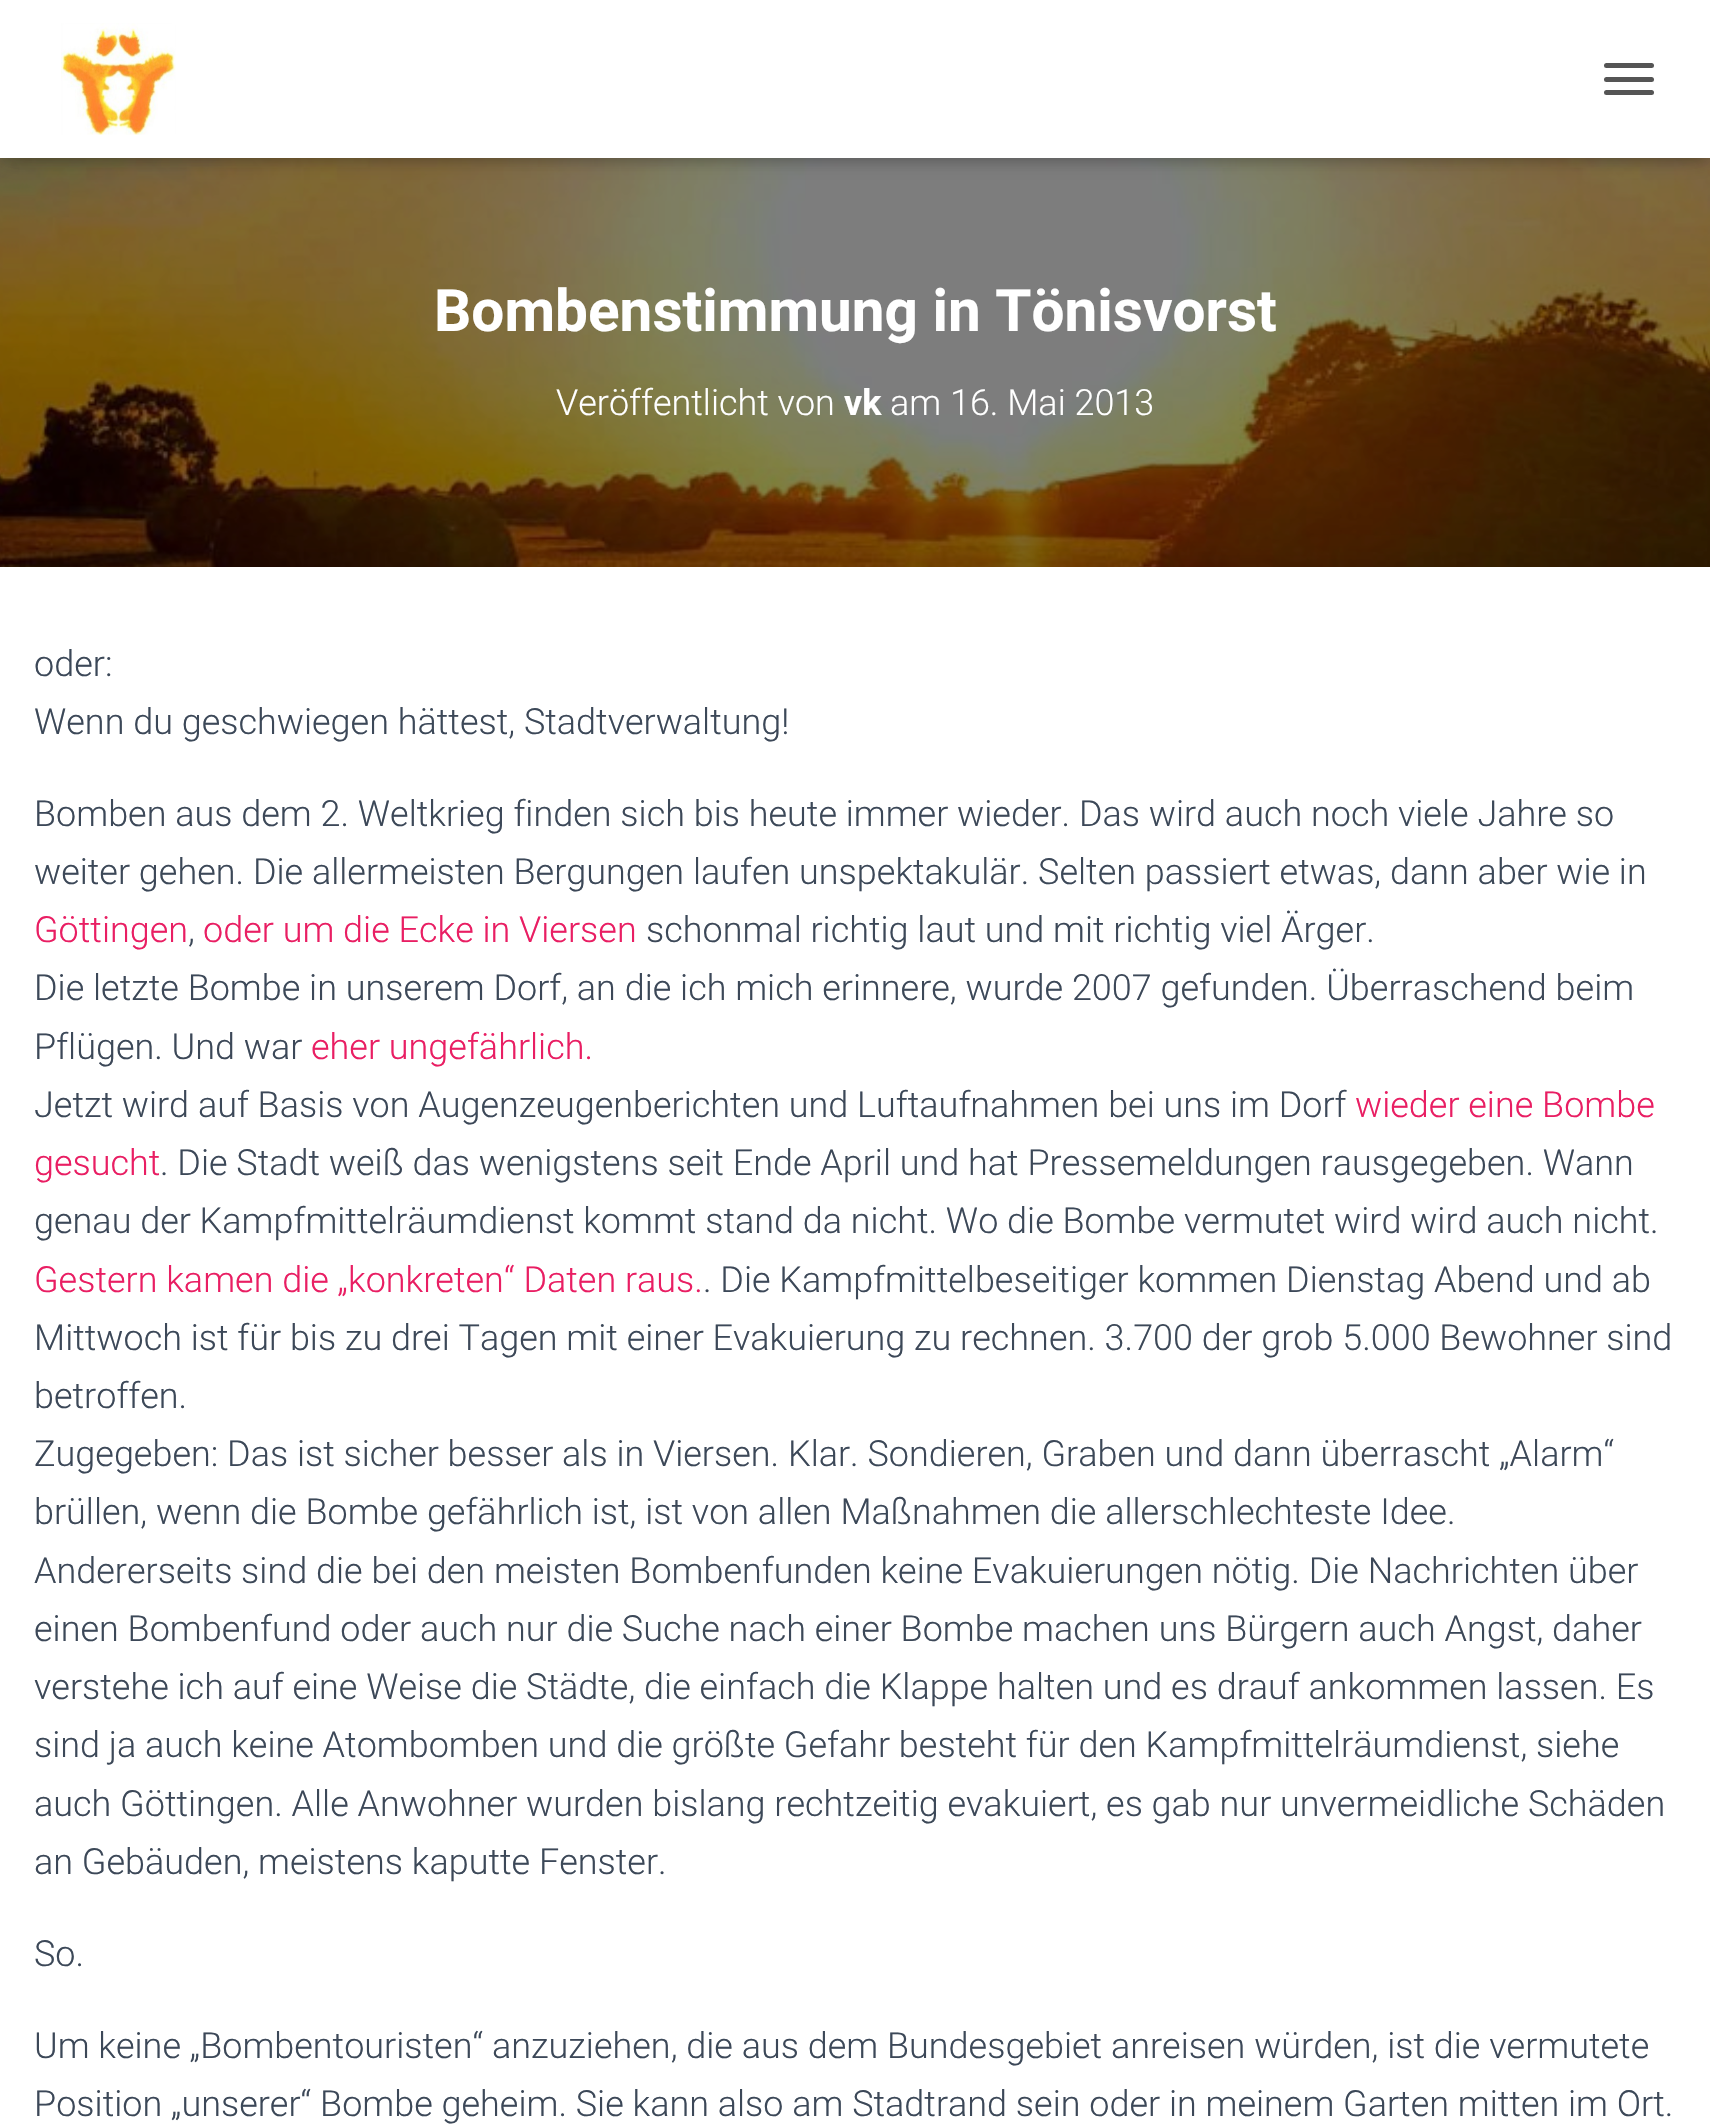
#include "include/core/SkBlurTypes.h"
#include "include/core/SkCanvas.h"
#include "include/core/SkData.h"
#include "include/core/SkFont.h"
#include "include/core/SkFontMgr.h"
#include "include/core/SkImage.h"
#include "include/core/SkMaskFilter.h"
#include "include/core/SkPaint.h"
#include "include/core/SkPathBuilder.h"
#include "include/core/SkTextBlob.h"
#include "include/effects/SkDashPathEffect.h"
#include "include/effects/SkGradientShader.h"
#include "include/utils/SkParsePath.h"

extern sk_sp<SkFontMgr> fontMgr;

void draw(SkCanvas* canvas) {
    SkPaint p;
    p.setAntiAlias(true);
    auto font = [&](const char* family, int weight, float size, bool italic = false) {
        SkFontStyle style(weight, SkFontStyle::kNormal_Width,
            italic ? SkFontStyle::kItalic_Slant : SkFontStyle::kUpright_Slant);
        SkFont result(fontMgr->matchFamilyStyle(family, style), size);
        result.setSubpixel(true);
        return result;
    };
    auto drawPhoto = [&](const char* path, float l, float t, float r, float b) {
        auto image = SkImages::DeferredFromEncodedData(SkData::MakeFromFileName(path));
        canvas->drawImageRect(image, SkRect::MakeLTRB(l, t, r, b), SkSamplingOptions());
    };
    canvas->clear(0xFFFFFFFF);
    drawPhoto("media/2.png", 0, 158, 1710, 567);
    p.setColor(0x1A000000);
    p.setMaskFilter(SkMaskFilter::MakeBlur(kNormal_SkBlurStyle, 5.5f));
    canvas->drawRect(SkRect::MakeLTRB(5, 14, 1706, 162), p);
    p.setMaskFilter(nullptr);
    p.setColor(0x1F000000);
    p.setMaskFilter(SkMaskFilter::MakeBlur(kNormal_SkBlurStyle, 11));
    canvas->drawRect(SkRect::MakeLTRB(0, 2, 1710, 160), p);
    p.setMaskFilter(nullptr);
    p.setColor(0x6B000000);
    p.setMaskFilter(SkMaskFilter::MakeBlur(kNormal_SkBlurStyle, 11));
    canvas->drawRect(SkRect::MakeLTRB(14, 16, 1697, 146), p);
    p.setMaskFilter(nullptr);
    p.setColor(0xFFFFFFFF);
    canvas->drawRect(SkRect::MakeLTRB(0, 0, 1710, 158), p);
    drawPhoto("media/1.png", 61, 23, 176, 135);
    p.setColor(0xFF555555);
    canvas->drawRoundRect(SkRect::MakeLTRB(1604, 63, 1654, 68), 2.5f, 2.5f, p);
    canvas->drawRoundRect(SkRect::MakeLTRB(1604, 77, 1654, 82), 2.5f, 2.5f, p);
    canvas->drawRoundRect(SkRect::MakeLTRB(1604, 90, 1654, 95), 2.5f, 2.5f, p);
    auto font1 = font("Roboto", 700, 58.5f);
    p.setColor(0xFFFFFFFF);
    canvas->drawString("Bombenstimmung in Tönisvorst", 434, 331, font1, p);
    auto font2 = font("Roboto", 300, 36);
    canvas->drawString("Veröffentlicht von", 556, 415, font2, p);
    auto font3 = font("Roboto", 700, 36);
    canvas->drawString("vk", 844, 415, font3, p);
    canvas->drawString("am 16. Mai 2013", 890, 415, font2, p);
    p.setColor(0x1F000000);
    p.setMaskFilter(SkMaskFilter::MakeBlur(kNormal_SkBlurStyle, 34));
    canvas->drawRect(SkRect::MakeLTRB(-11, 569, 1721, 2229), p);
    p.setMaskFilter(nullptr);
    p.setColor(0xFFFFFFFF);
    canvas->drawRect(SkRect::MakeLTRB(0, 567, 1710, 2127), p);
    p.setColor(0xFF3C4858);
    {
        const struct { const char* s; float x, y; } items[] = {
            {"oder:", 34, 676},
            {"Wenn du geschwiegen hättest, Stadtverwaltung!", 34, 734},
            {"Bomben aus dem 2. Weltkrieg finden sich bis heute immer wieder. Das wird auch noch viele Jahre so", 34, 826},
            {"weiter gehen. Die allermeisten Bergungen laufen unspektakulär. Selten passiert etwas, dann aber wie in", 34, 884},
        };
        for (auto [s, x, y] : items) {
            canvas->drawString(s, x, y, font2, p);
        }
    }
    p.setColor(0xFFE91E63);
    canvas->drawString("Göttingen", 34, 942, font2, p);
    p.setColor(0xFF3C4858);
    canvas->drawString(",", 188, 942, font2, p);
    p.setColor(0xFFE91E63);
    canvas->drawString("oder um die Ecke in Viersen", 203, 942, font2, p);
    p.setColor(0xFF3C4858);
    {
        const struct { const char* s; float x, y; } items[] = {
            {"schonmal richtig laut und mit richtig viel Ärger.", 646, 942},
            {"Die letzte Bombe in unserem Dorf, an die ich mich erinnere, wurde 2007 gefunden. Überraschend beim", 34, 1000},
            {"Pflügen. Und war", 34, 1059},
        };
        for (auto [s, x, y] : items) {
            canvas->drawString(s, x, y, font2, p);
        }
    }
    p.setColor(0xFFE91E63);
    canvas->drawString("eher ungefährlich.", 311, 1059, font2, p);
    p.setColor(0xFF3C4858);
    canvas->drawString("Jetzt wird auf Basis von Augenzeugenberichten und Luftaufnahmen bei uns im Dorf", 34, 1117, font2, p);
    p.setColor(0xFFE91E63);
    canvas->drawString("wieder eine Bombe", 1355, 1117, font2, p);
    canvas->drawString("gesucht", 34, 1175, font2, p);
    p.setColor(0xFF3C4858);
    canvas->drawString(". Die Stadt weiß das wenigstens seit Ende April und hat Pressemeldungen rausgegeben. Wann", 160, 1175, font2, p);
    canvas->drawString("genau der Kampfmittelräumdienst kommt stand da nicht. Wo die Bombe vermutet wird wird auch nicht.", 34, 1233, font2, p);
    p.setColor(0xFFE91E63);
    canvas->drawString("Gestern kamen die „konkreten“ Daten raus.", 34, 1292, font2, p);
    p.setColor(0xFF3C4858);
    {
        const struct { const char* s; float x, y; } items[] = {
            {". Die Kampfmittelbeseitiger kommen Dienstag Abend und ab", 703, 1292},
            {"Mittwoch ist für bis zu drei Tagen mit einer Evakuierung zu rechnen. 3.700 der grob 5.000 Bewohner sind", 34, 1350},
            {"betroffen.", 34, 1408},
            {"Zugegeben: Das ist sicher besser als in Viersen. Klar. Sondieren, Graben und dann überrascht „Alarm“", 34, 1466},
            {"brüllen, wenn die Bombe gefährlich ist, ist von allen Maßnahmen die allerschlechteste Idee.", 34, 1524},
            {"Andererseits sind die bei den meisten Bombenfunden keine Evakuierungen nötig. Die Nachrichten über", 34, 1583},
            {"einen Bombenfund oder auch nur die Suche nach einer Bombe machen uns Bürgern auch Angst, daher", 34, 1641},
            {"verstehe ich auf eine Weise die Städte, die einfach die Klappe halten und es drauf ankommen lassen. Es", 34, 1699},
            {"sind ja auch keine Atombomben und die größte Gefahr besteht für den Kampfmittelräumdienst, siehe", 34, 1757},
            {"auch Göttingen. Alle Anwohner wurden bislang rechtzeitig evakuiert, es gab nur unvermeidliche Schäden", 34, 1816},
            {"an Gebäuden, meistens kaputte Fenster.", 34, 1874},
            {"So.", 34, 1966},
            {"Um keine „Bombentouristen“ anzuziehen, die aus dem Bundesgebiet anreisen würden, ist die vermutete", 34, 2058},
            {"Position „unserer“ Bombe geheim. Sie kann also am Stadtrand sein oder in meinem Garten mitten im Ort.", 34, 2116},
        };
        for (auto [s, x, y] : items) {
            canvas->drawString(s, x, y, font2, p);
        }
    }
}
